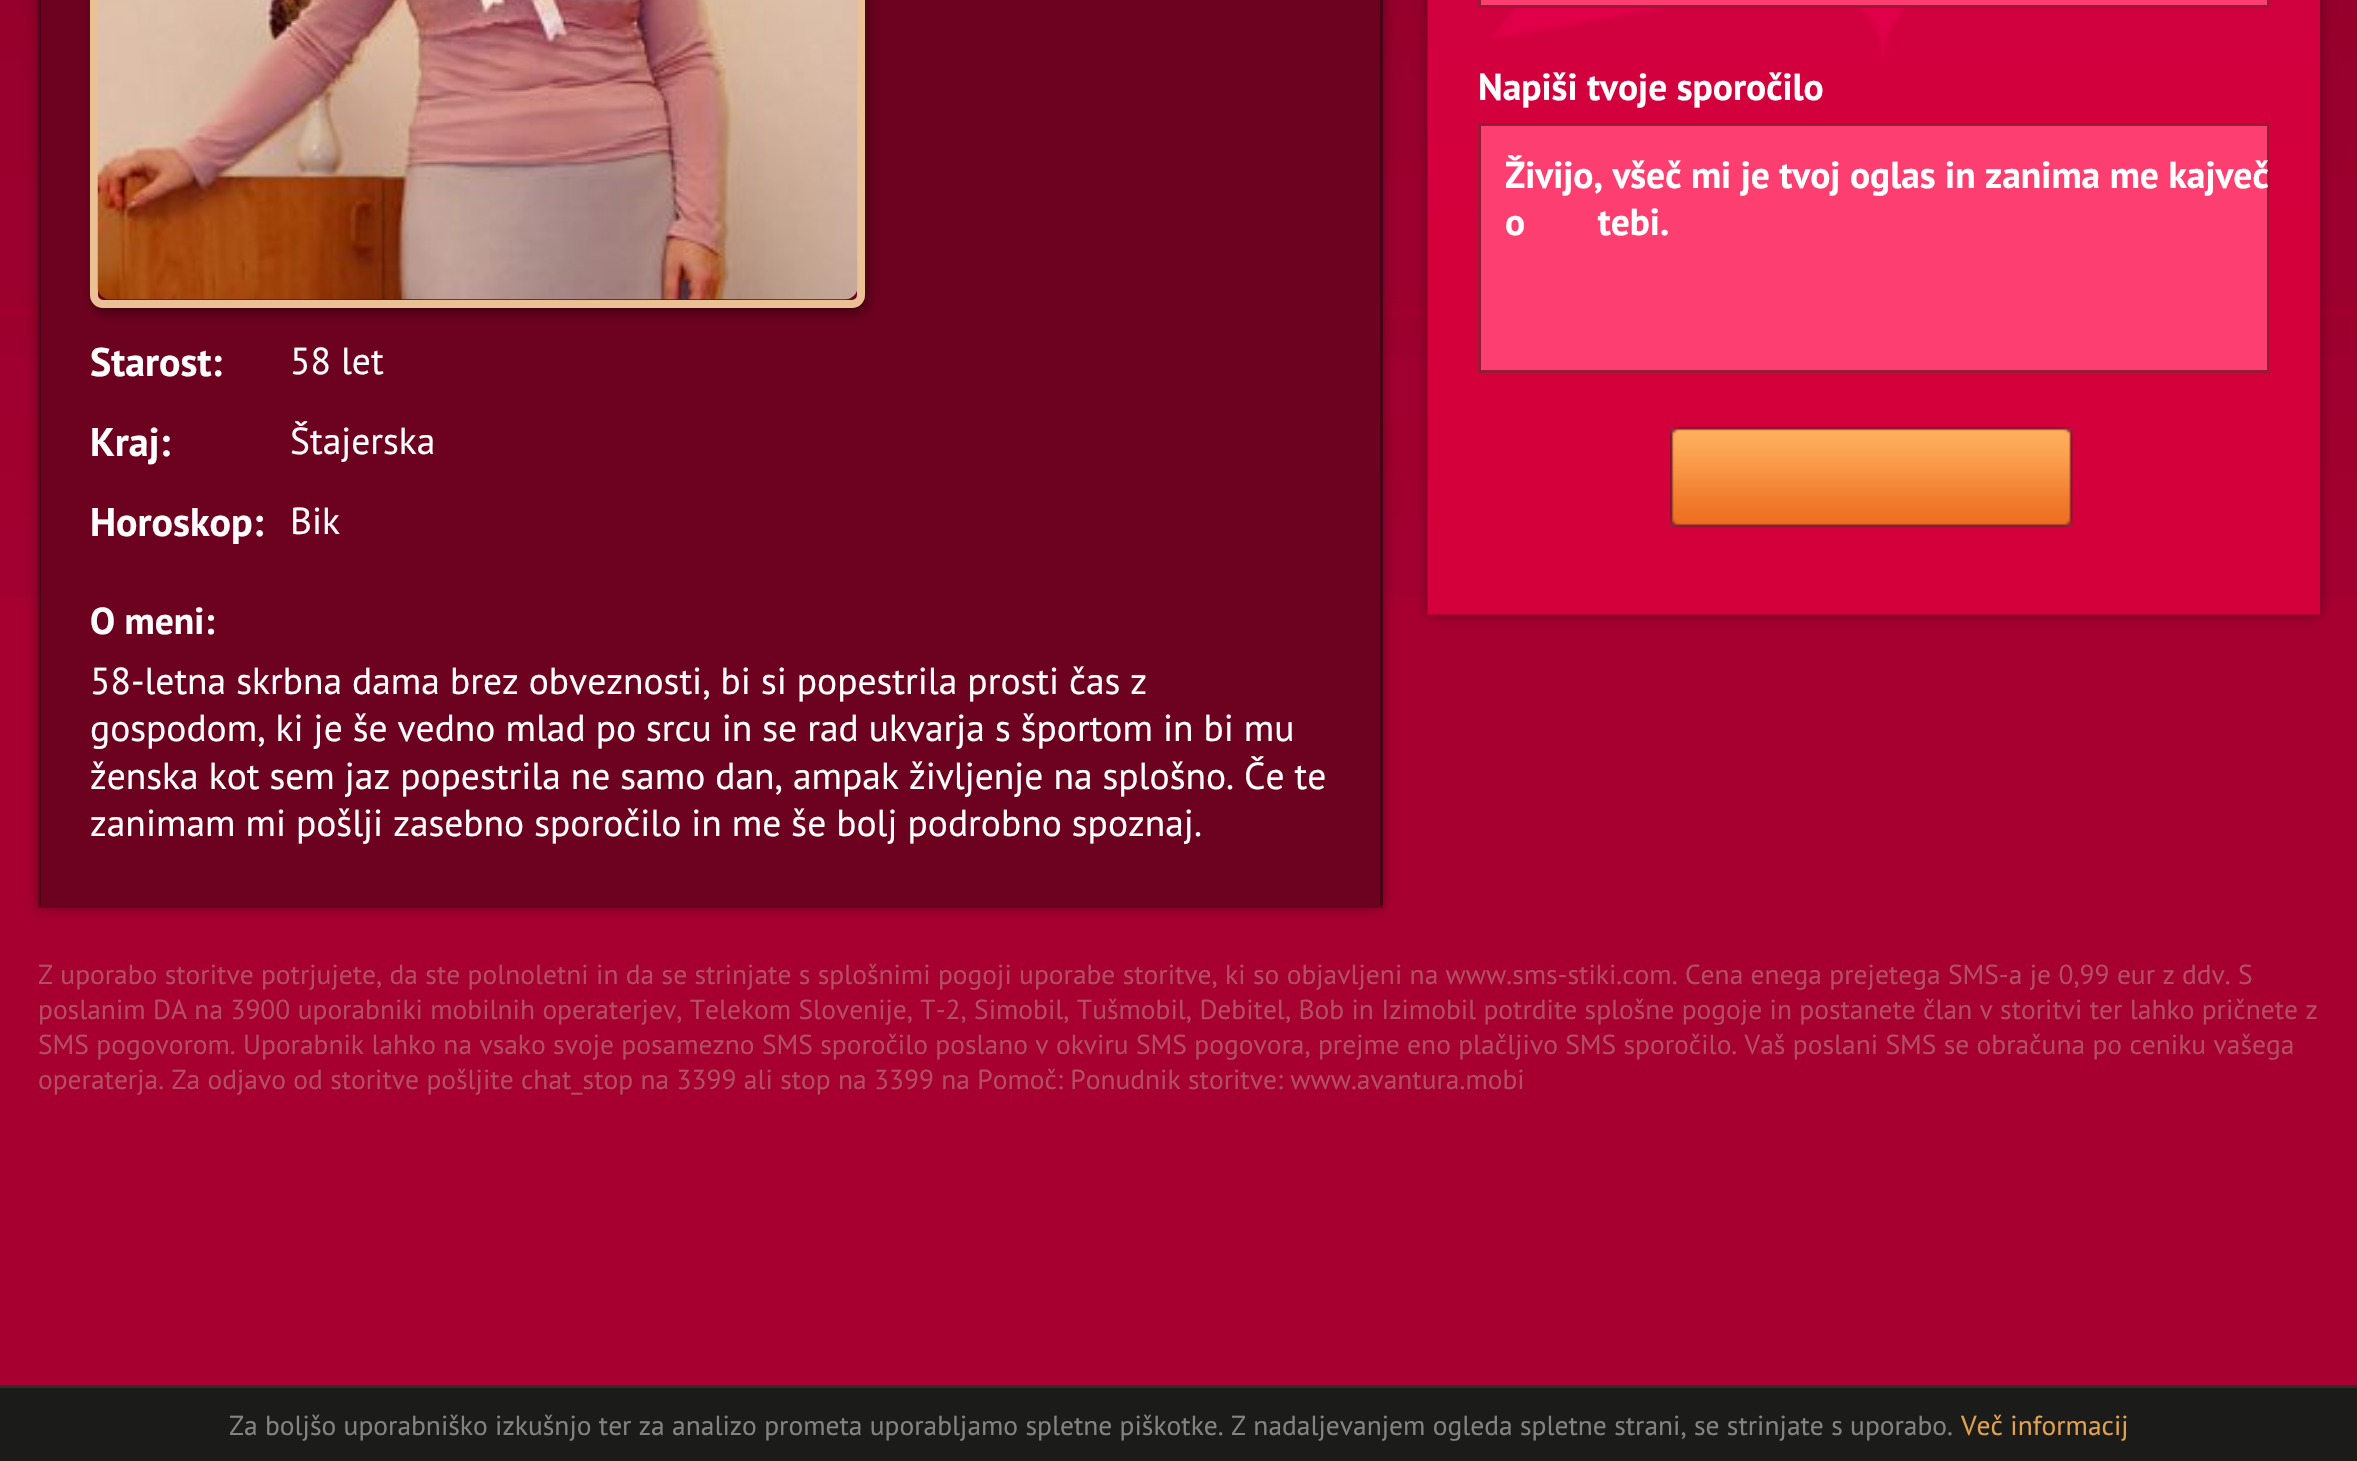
#include "include/core/SkBlurTypes.h"
#include "include/core/SkCanvas.h"
#include "include/core/SkData.h"
#include "include/core/SkFont.h"
#include "include/core/SkFontMgr.h"
#include "include/core/SkImage.h"
#include "include/core/SkMaskFilter.h"
#include "include/core/SkPaint.h"
#include "include/core/SkPathBuilder.h"
#include "include/core/SkTextBlob.h"
#include "include/effects/SkDashPathEffect.h"
#include "include/effects/SkGradientShader.h"
#include "include/utils/SkParsePath.h"

extern sk_sp<SkFontMgr> fontMgr;

void draw(SkCanvas* canvas) {
    SkPaint p;
    p.setAntiAlias(true);
    auto font = [&](const char* family, int weight, float size, bool italic = false) {
        SkFontStyle style(weight, SkFontStyle::kNormal_Width,
            italic ? SkFontStyle::kItalic_Slant : SkFontStyle::kUpright_Slant);
        SkFont result(fontMgr->matchFamilyStyle(family, style), size);
        result.setSubpixel(true);
        return result;
    };
    auto drawTracked = [&](const char* s, float x, float y, const SkFont& font, const SkPaint& ink, float letter, float word) {
        std::vector<SkGlyphID> glyphs(font.countText(s, strlen(s), SkTextEncoding::kUTF8));
        std::vector<float> xs(glyphs.size());
        font.textToGlyphs(s, strlen(s), SkTextEncoding::kUTF8, glyphs);
        font.getXPos(glyphs, xs, x);
        float extra = 0;
        for (size_t i = 0; i < glyphs.size(); i++) {
            xs[i] += extra;
            extra += letter + word * (glyphs[i] == font.unicharToGlyph(' '));
        }
        canvas->drawTextBlob(SkTextBlob::MakeFromPosHGlyphs(glyphs, xs, y, font), 0, 0, ink);
    };
    auto drawPhoto = [&](const char* path, float l, float t, float r, float b) {
        auto image = SkImages::DeferredFromEncodedData(SkData::MakeFromFileName(path));
        canvas->drawImageRect(image, SkRect::MakeLTRB(l, t, r, b), SkSamplingOptions());
    };
    canvas->clear(0xFFA70030);
    drawPhoto("media/1.png", 0, 0, 2357, 597);
    p.setColor(0x59000000);
    p.setMaskFilter(SkMaskFilter::MakeBlur(kNormal_SkBlurStyle, 6));
    canvas->drawRect(SkRect::MakeLTRB(1428, -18, 2320, 615), p);
    p.setMaskFilter(nullptr);
    drawPhoto("media/2.png", 1427, 0, 2320, 615);
    p.setColor(0xFFFD3E70);
    canvas->drawRect(SkRect::MakeLTRB(1479.5f, -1.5f, 2268.5f, 6.5f), p);
    p.setStyle(SkPaint::kStroke_Style);
    p.setStrokeWidth(3);
    p.setColor(0xFF991936);
    canvas->drawRect(SkRect::MakeLTRB(1479.5f, -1.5f, 2268.5f, 6.5f), p);
    auto font1 = font("PT Sans", 700, 37.5f);
    p.setStyle(SkPaint::kFill_Style);
    p.setColor(0xFFFFFFFF);
    canvas->drawString("Napiši tvoje sporočilo", 1478, 100, font1, p);
    p.setColor(0xFFFD3E70);
    canvas->drawRect(SkRect::MakeLTRB(1479.5f, 124.5f, 2268.5f, 371.5f), p);
    p.setStyle(SkPaint::kStroke_Style);
    p.setColor(0xFF991936);
    canvas->drawRect(SkRect::MakeLTRB(1479.5f, 124.5f, 2268.5f, 371.5f), p);
    p.setStyle(SkPaint::kFill_Style);
    p.setColor(0xFFFFFFFF);
    canvas->drawString("Živijo, všeč mi je tvoj oglas in zanima me kajveč", 1505, 188, font1, p);
    drawTracked("o tebi.", 1505, 235, font1, p, 0, 63);
    drawPhoto("media/3.png", 1670, 427, 2073, 527);
    canvas->save();
    canvas->clipPath(SkPathBuilder(SkPathFillType::kEvenOdd).moveTo(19, 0).lineTo(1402, 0).lineTo(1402, 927).lineTo(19, 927).close().moveTo(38, -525).lineTo(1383, -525).lineTo(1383, 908).lineTo(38, 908).close().detach(), true);
    p.setColor(0x59000000);
    p.setMaskFilter(SkMaskFilter::MakeBlur(kNormal_SkBlurStyle, 6));
    canvas->drawRect(SkRect::MakeLTRB(38, -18, 1383, 908), p);
    p.setMaskFilter(nullptr);
    canvas->restore();
    p.setColor(0xFF6D0220);
    canvas->drawRect(SkRect::MakeLTRB(40, 0, 1383, 905), p);
    p.setStyle(SkPaint::kStroke_Style);
    p.setColor(0x59000000);
    canvas->drawRect(SkRect::MakeLTRB(39.5f, -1.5f, 1381.5f, 906.5f), p);
    canvas->save();
    canvas->clipPath(SkPathBuilder(SkPathFillType::kEvenOdd).moveTo(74, 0).lineTo(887, 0).lineTo(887, 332).lineTo(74, 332).close().moveTo(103, -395).lineTo(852, -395).cubicTo(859, -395, 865, -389, 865, -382).lineTo(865, 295).cubicTo(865, 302, 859, 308, 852, 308).lineTo(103, 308).cubicTo(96, 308, 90, 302, 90, 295).lineTo(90, -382).cubicTo(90, -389, 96, -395, 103, -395).close().detach(), true);
    p.setStyle(SkPaint::kFill_Style);
    p.setColor(0x66000000);
    p.setMaskFilter(SkMaskFilter::MakeBlur(kNormal_SkBlurStyle, 6));
    canvas->drawRoundRect(SkRect::MakeLTRB(93, -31, 868, 313), 13, 13, p);
    p.setMaskFilter(nullptr);
    canvas->restore();
    p.setStyle(SkPaint::kStroke_Style);
    p.setStrokeWidth(8);
    p.setColor(0xFFEAC095);
    canvas->drawRoundRect(SkRect::MakeLTRB(94, -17, 861, 304), 9, 9, p);
    drawPhoto("media/4.png", 97, 0, 858, 300);
    auto font2 = font("PT Sans", 700, 40);
    p.setStyle(SkPaint::kFill_Style);
    p.setColor(0xFFFFFFFF);
    canvas->drawString("Starost:", 90, 376, font2, p);
    auto font3 = font("PT Sans", 400, 37.5f);
    canvas->drawString("58 let", 290, 374, font3, p);
    canvas->drawString("Kraj:", 90, 456, font2, p);
    canvas->drawString("Štajerska", 290, 454, font3, p);
    canvas->drawString("Horoskop:", 90, 536, font2, p);
    canvas->drawString("Bik", 290, 534, font3, p);
    canvas->drawString("O meni:", 90, 634, font1, p);
    {
        const struct { const char* s; float x, y; } items[] = {
            {"58-letna skrbna dama brez obveznosti, bi si popestrila prosti čas z", 90, 694},
            {"gospodom, ki je še vedno mlad po srcu in se rad ukvarja s športom in bi mu", 90, 741},
            {"ženska kot sem jaz popestrila ne samo dan, ampak življenje na splošno. Če te", 90, 789},
            {"zanimam mi pošlji zasebno sporočilo in me še bolj podrobno spoznaj.", 90, 836},
        };
        for (auto [s, x, y] : items) {
            canvas->drawString(s, x, y, font3, p);
        }
    }
    auto font4 = font("PT Sans", 400, 27.5f);
    p.setColor(0xFFB44E63);
    {
        const struct { const char* s; float x, y; } items[] = {
            {"Z uporabo storitve potrjujete, da ste polnoletni in da se strinjate s splošnimi pogoji uporabe storitve, ki so objavljeni na www.sms-stiki.com. Cena enega prejetega SMS-a je 0,99 eur z ddv. S", 38, 984},
            {"poslanim DA na 3900 uporabniki mobilnih operaterjev, Telekom Slovenije, T-2, Simobil, Tušmobil, Debitel, Bob in Izimobil potrdite splošne pogoje in postanete član v storitvi ter lahko pričnete z", 38, 1019},
            {"SMS pogovorom. Uporabnik lahko na vsako svoje posamezno SMS sporočilo poslano v okviru SMS pogovora, prejme eno plačljivo SMS sporočilo. Vaš poslani SMS se obračuna po ceniku vašega", 38, 1054},
            {"operaterja. Za odjavo od storitve pošljite chat_stop na 3399 ali stop na 3399 na Pomoč: Ponudnik storitve: www.avantura.mobi", 38, 1089},
        };
        for (auto [s, x, y] : items) {
            canvas->drawString(s, x, y, font4, p);
        }
    }
    p.setColor(0xFF1B1B19);
    canvas->drawRect(SkRect::MakeLTRB(0, 1388, 2357, 1461), p);
    p.setColor(0xFF2D2D2D);
    canvas->drawRect(SkRect::MakeLTRB(0, 1385, 2357, 1388), p);
    p.setColor(0xFF838383);
    canvas->drawString("Za boljšo uporabniško izkušnjo ter za analizo prometa uporabljamo spletne piškotke. Z nadaljevanjem ogleda spletne strani, se strinjate s uporabo.", 229, 1435, font4, p);
    p.setColor(0xFFE2A14C);
    canvas->drawString("Več informacij", 1961, 1435, font4, p);
}
